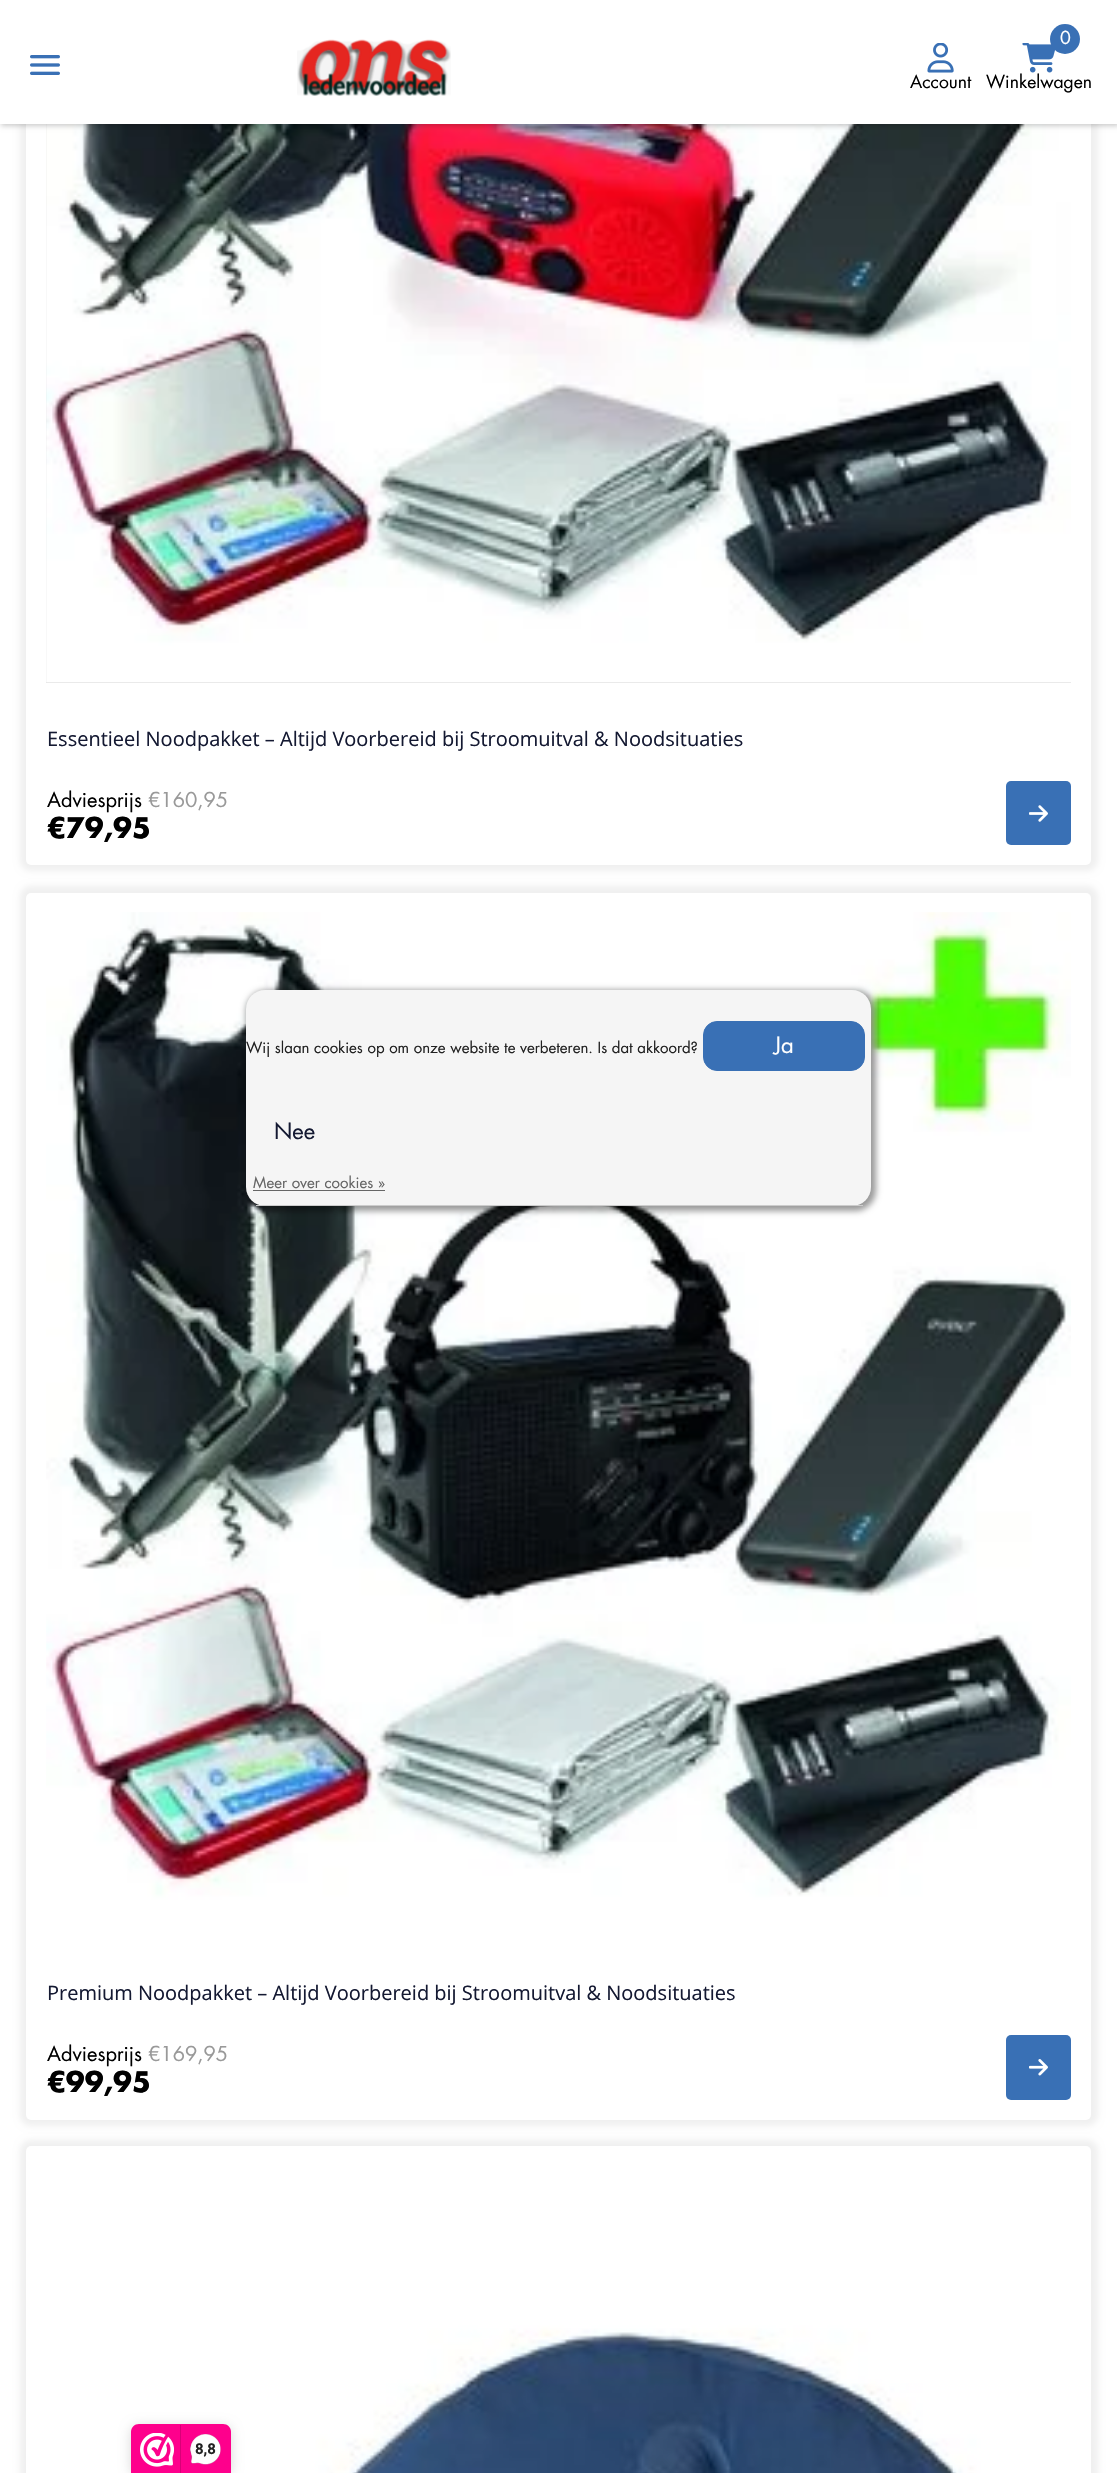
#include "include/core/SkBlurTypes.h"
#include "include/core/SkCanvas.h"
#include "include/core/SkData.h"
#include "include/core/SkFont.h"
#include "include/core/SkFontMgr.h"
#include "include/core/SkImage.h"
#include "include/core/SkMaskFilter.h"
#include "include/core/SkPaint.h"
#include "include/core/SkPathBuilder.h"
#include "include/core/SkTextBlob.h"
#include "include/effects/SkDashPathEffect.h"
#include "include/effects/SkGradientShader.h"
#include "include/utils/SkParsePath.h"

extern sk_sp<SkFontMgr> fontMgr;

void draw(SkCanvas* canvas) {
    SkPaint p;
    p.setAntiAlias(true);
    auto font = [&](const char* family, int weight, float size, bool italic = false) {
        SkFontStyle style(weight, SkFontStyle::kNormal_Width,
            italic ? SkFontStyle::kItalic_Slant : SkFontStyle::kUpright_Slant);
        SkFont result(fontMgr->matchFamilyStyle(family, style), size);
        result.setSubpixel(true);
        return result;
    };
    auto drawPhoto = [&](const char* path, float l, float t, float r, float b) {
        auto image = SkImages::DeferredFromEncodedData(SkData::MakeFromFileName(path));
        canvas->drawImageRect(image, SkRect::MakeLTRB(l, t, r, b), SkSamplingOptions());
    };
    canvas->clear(0xFFFFFFFF);
    p.setColor(0x0F000000);
    p.setMaskFilter(SkMaskFilter::MakeBlur(kNormal_SkBlurStyle, 3));
    canvas->drawRoundRect(SkRect::MakeLTRB(20, -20, 1098, 871), 11, 11, p);
    p.setMaskFilter(nullptr);
    p.setColor(0xFFFFFFFF);
    canvas->drawRoundRect(SkRect::MakeLTRB(26, -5, 1091, 865), 5, 5, p);
    p.setColor(0xFFE3E3E3);
    canvas->drawRect(SkRect::MakeLTRB(46, 124, 1071, 683), p);
    drawPhoto("media/5.png", 46, 124, 1071, 683);
    p.setColor(0x33000000);
    p.setMaskFilter(SkMaskFilter::MakeBlur(kNormal_SkBlurStyle, 2.5f));
    canvas->drawRect(SkRect::MakeLTRB(1, 3, 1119, 126), p);
    p.setMaskFilter(nullptr);
    p.setColor(0xFFFFFFFF);
    canvas->drawRect(SkRect::MakeLTRB(0, 0, 1117, 124), p);
    drawPhoto("media/1.png", 30, 55, 60, 75);
    drawPhoto("media/2.png", 297, 39, 451, 96);
    drawPhoto("media/3.png", 927, 43, 954, 73);
    auto font1 = font("Futura", 400, 17.5f);
    p.setColor(0xFF000000);
    canvas->drawString("Account", 910, 88, font1, p);
    drawPhoto("media/4.png", 1022, 43, 1055, 73);
    p.setColor(0xFF3970B5);
    canvas->drawCircle(1065, 39, 15, p);
    p.setColor(0xFFFFFFFF);
    canvas->drawString("0", 1060, 44, font1, p);
    p.setColor(0xFF000000);
    canvas->drawString("Winkelwagen", 986, 88, font1, p);
    auto font2 = font("Open Sans", 400, 20);
    p.setColor(0xFF141932);
    canvas->drawString("Essentieel Noodpakket – Altijd Voorbereid bij Stroomuitval & Noodsituaties", 47, 746, font2, p);
    auto font3 = font("Futura", 400, 20);
    p.setColor(0xFF000000);
    canvas->drawString("Adviesprijs", 47, 807, font3, p);
    p.setColor(0xFF999999);
    canvas->drawString("€160,95", 148, 807, font3, p);
    auto font4 = font("Futura", 700, 27.5f);
    p.setColor(0xFF000000);
    canvas->drawString("€79,95", 47, 838, font4, p);
    p.setColor(0xFF3970B5);
    canvas->drawRoundRect(SkRect::MakeLTRB(1006, 781, 1071, 845), 5, 5, p);
    drawPhoto("media/6.png", 1029, 805, 1048, 822);
    p.setColor(0x0F000000);
    p.setMaskFilter(SkMaskFilter::MakeBlur(kNormal_SkBlurStyle, 3));
    canvas->drawRoundRect(SkRect::MakeLTRB(20, 886, 1098, 2126), 11, 11, p);
    p.setMaskFilter(nullptr);
    p.setColor(0xFFFFFFFF);
    canvas->drawRoundRect(SkRect::MakeLTRB(26, 893, 1091, 2120), 5, 5, p);
    drawPhoto("media/7.png", 46, 912, 1071, 1936);
    p.setColor(0xFF141932);
    canvas->drawString("Premium Noodpakket – Altijd Voorbereid bij Stroomuitval & Noodsituaties", 47, 2000, font2, p);
    p.setColor(0xFF000000);
    canvas->drawString("Adviesprijs", 47, 2061, font3, p);
    p.setColor(0xFF999999);
    canvas->drawString("€169,95", 148, 2061, font3, p);
    p.setColor(0xFF000000);
    canvas->drawString("€99,95", 47, 2092, font4, p);
    p.setColor(0xFF3970B5);
    canvas->drawRoundRect(SkRect::MakeLTRB(1006, 2035, 1071, 2100), 5, 5, p);
    drawPhoto("media/8.png", 1029, 2059, 1048, 2076);
    p.setColor(0x0F000000);
    p.setMaskFilter(SkMaskFilter::MakeBlur(kNormal_SkBlurStyle, 3));
    canvas->drawRoundRect(SkRect::MakeLTRB(20, 2140, 1098, 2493), 11, 11, p);
    p.setMaskFilter(nullptr);
    p.setColor(0xFFFFFFFF);
    canvas->drawRoundRect(SkRect::MakeLTRB(26, 2146, 1091, 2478), 5, 5, p);
    drawPhoto("media/9.png", 46, 2166, 1071, 2473);
    p.setColor(0x66000000);
    p.setMaskFilter(SkMaskFilter::MakeBlur(kNormal_SkBlurStyle, 3));
    canvas->drawRoundRect(SkRect::MakeLTRB(246, 990, 876, 1211), 21, 21, p);
    p.setMaskFilter(nullptr);
    p.setColor(0xFFF5F5F5);
    canvas->drawRoundRect(SkRect::MakeLTRB(246, 990, 871, 1206), 19, 19, p);
    p.setColor(0xFFCCCCCC);
    canvas->drawRect(SkRect::MakeLTRB(256, 1205, 863, 1206), p);
    auto font5 = font("Futura", 400, 15);
    p.setColor(0xFF222222);
    canvas->drawString("Wij slaan cookies op om onze website te verbeteren. Is dat akkoord?", 246, 1053, font5, p);
    p.setColor(0xFF3970B5);
    canvas->drawRoundRect(SkRect::MakeLTRB(703.5f, 1021.5f, 864.5f, 1070.5f), 13.5f, 13.5f, p);
    p.setStyle(SkPaint::kStroke_Style);
    p.setStrokeWidth(1);
    canvas->drawRoundRect(SkRect::MakeLTRB(703.5f, 1021.5f, 864.5f, 1070.5f), 13.5f, 13.5f, p);
    auto font6 = font("Futura", 400, 22);
    p.setStyle(SkPaint::kFill_Style);
    p.setColor(0xFFFFFFFF);
    canvas->drawString("Ja", 774, 1053, font6, p);
    p.setColor(0xFF141932);
    canvas->drawString("Nee", 274, 1139, font6, p);
    p.setColor(0xFF666666);
    canvas->drawString("Meer over cookies »", 253, 1188, font5, p);
    canvas->drawRect(SkRect::MakeLTRB(253, 1190, 385, 1191), p);
    p.setColor(0x26000000);
    p.setMaskFilter(SkMaskFilter::MakeBlur(kNormal_SkBlurStyle, 6));
    canvas->drawRoundRect(SkRect::MakeLTRB(131, 2426, 231, 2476), 8, 8, p);
    p.setMaskFilter(nullptr);
    p.setColor(0xFFFE008C);
    canvas->drawPath(SkPathBuilder().moveTo(139, 2424).lineTo(223, 2424).cubicTo(227.5f, 2424, 231, 2427.5f, 231, 2432).lineTo(231, 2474).lineTo(131, 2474).lineTo(131, 2432).cubicTo(131, 2427.5f, 134.5f, 2424, 139, 2424).close().detach(), p);
    drawPhoto("media/10.png", 140, 2433, 174, 2467);
    p.setColor(0xFFD80077);
    canvas->drawRect(SkRect::MakeLTRB(180, 2425, 181, 2473), p);
    drawPhoto("media/11.png", 190, 2434, 221, 2465);
    auto font7 = font("Roboto", 700, 15);
    p.setColor(0xFF222222);
    canvas->drawString("8,8", 195, 2454, font7, p);
}
